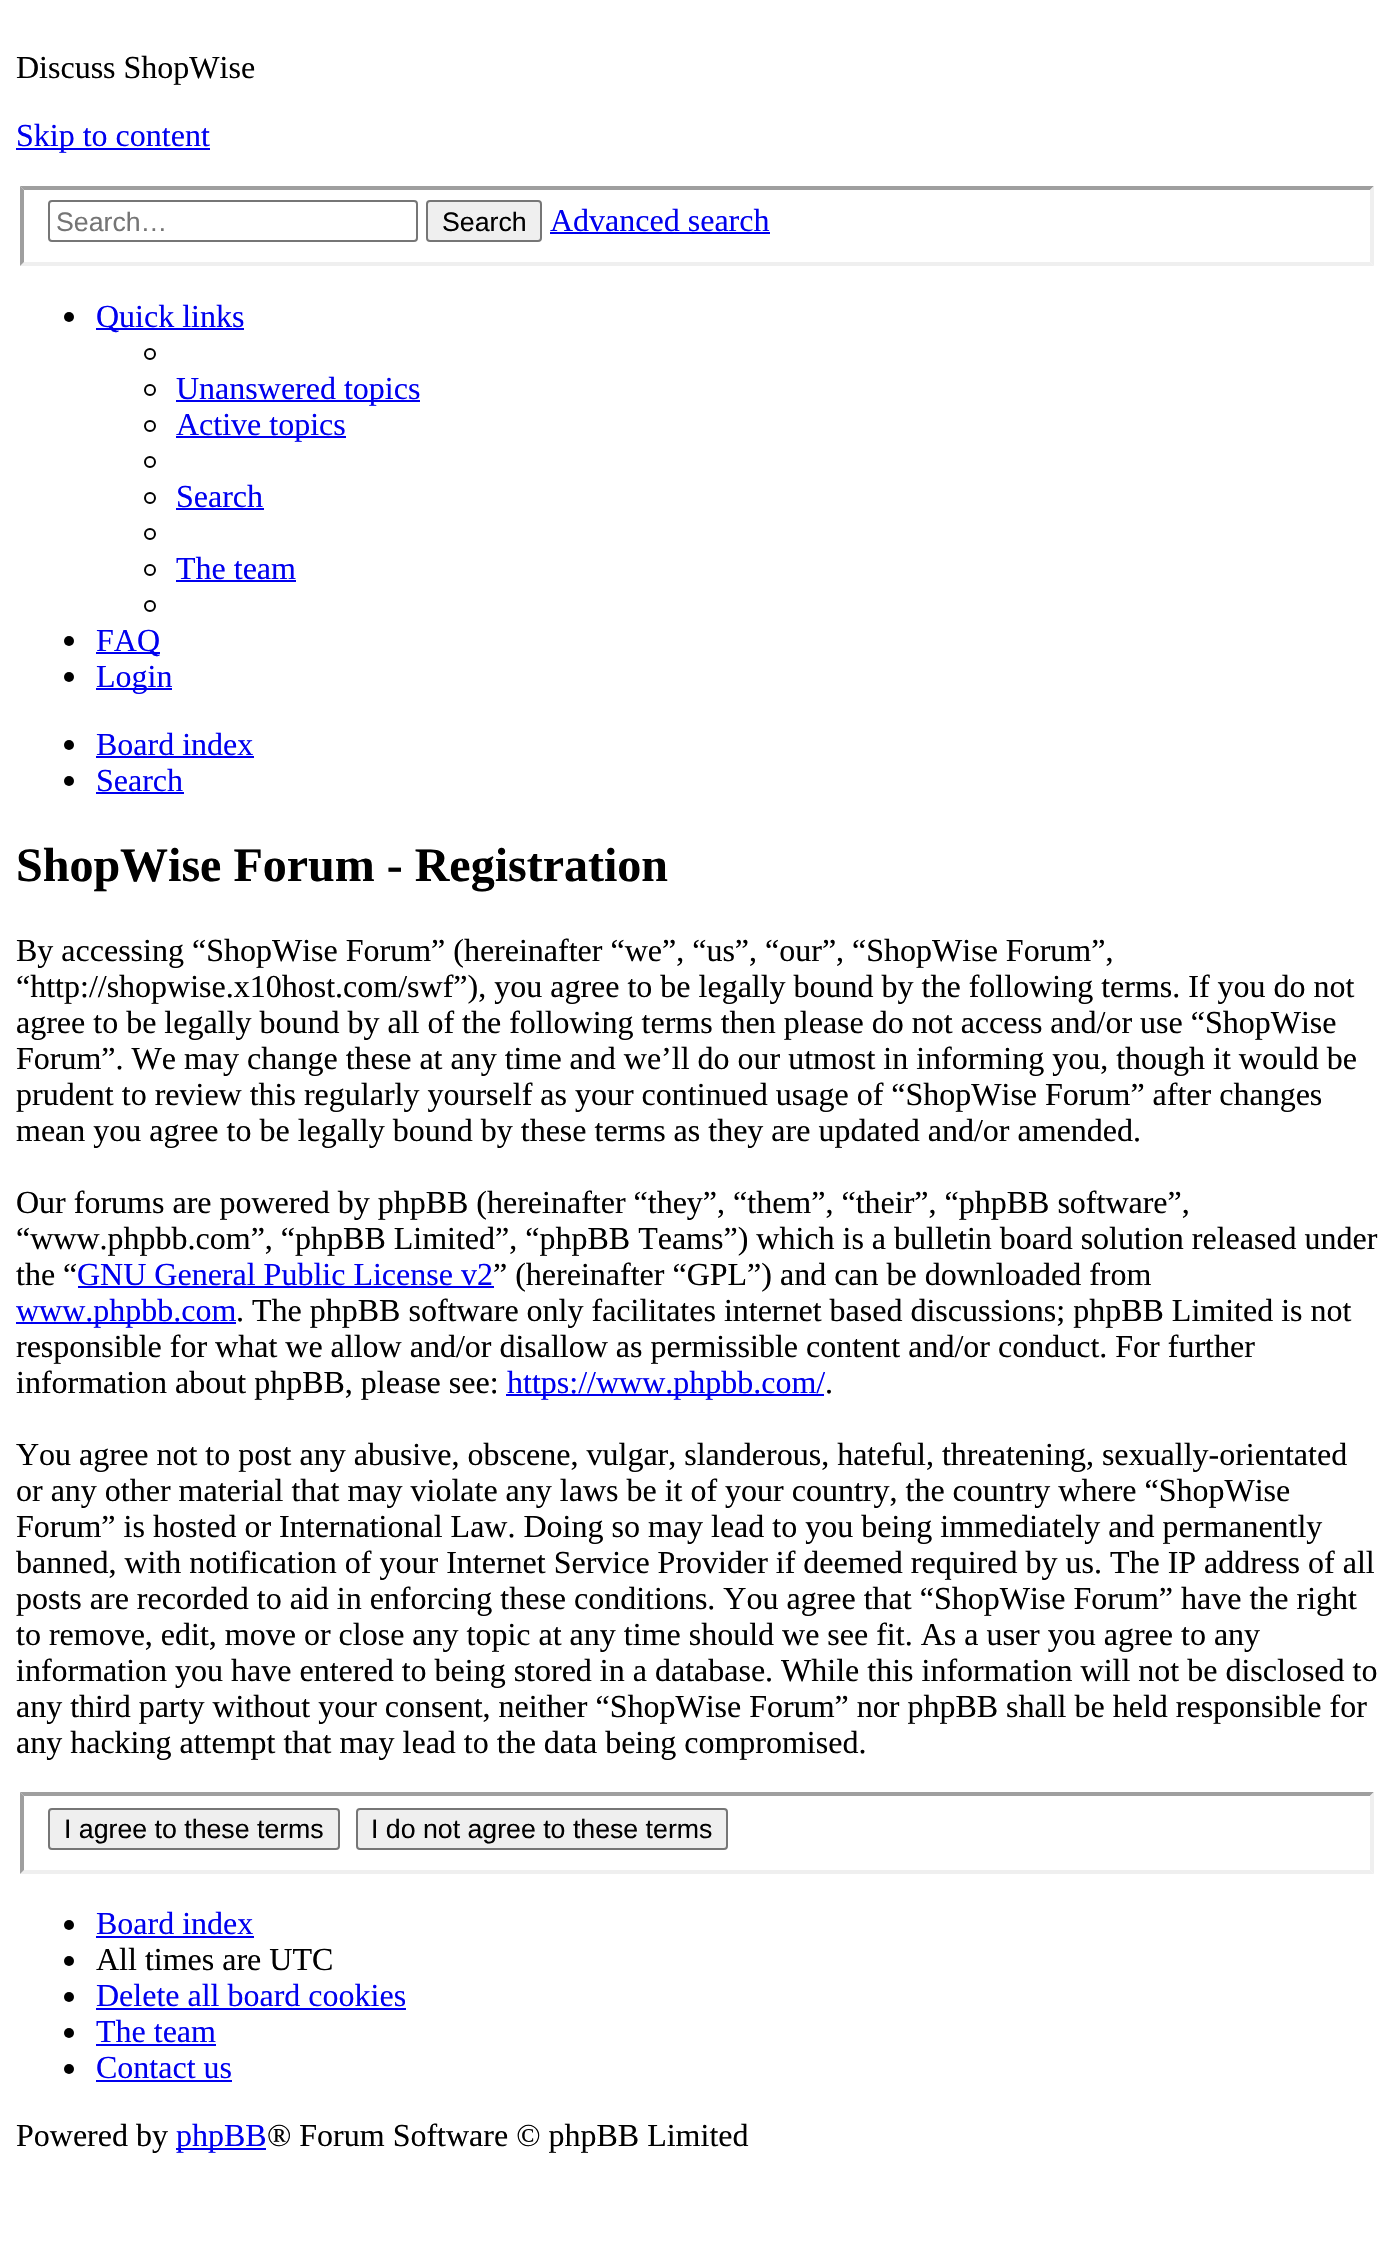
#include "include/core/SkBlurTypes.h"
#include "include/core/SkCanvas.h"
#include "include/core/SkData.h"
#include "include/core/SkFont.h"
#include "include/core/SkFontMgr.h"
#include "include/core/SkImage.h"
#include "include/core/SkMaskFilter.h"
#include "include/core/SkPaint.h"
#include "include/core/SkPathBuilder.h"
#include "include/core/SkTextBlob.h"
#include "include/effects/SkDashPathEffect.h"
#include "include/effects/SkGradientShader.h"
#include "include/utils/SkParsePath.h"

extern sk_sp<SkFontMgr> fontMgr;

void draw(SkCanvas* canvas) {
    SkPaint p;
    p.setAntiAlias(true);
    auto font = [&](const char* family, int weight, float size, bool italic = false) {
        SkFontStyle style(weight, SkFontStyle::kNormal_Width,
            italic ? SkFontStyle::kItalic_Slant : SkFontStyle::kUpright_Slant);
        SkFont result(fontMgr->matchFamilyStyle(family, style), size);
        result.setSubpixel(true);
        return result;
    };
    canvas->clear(0xFFFFFFFF);
    auto font1 = font("Liberation Serif", 400, 32);
    p.setColor(0xFF000000);
    canvas->drawString("Discuss ShopWise", 16, 78, font1, p);
    p.setColor(0xFF0000EE);
    canvas->drawRect(SkRect::MakeLTRB(16, 148, 210, 150), p);
    canvas->drawString("Skip to content", 16, 146, font1, p);
    p.setColor(0xFF9F9F9F);
    canvas->drawPath(SkPathBuilder().moveTo(20, 186).lineTo(1374, 186).lineTo(1370, 190).lineTo(24, 190).close().detach(), p);
    p.setColor(0xFFEFEFEF);
    canvas->drawPath(SkPathBuilder().moveTo(1374, 186).lineTo(1374, 266).lineTo(1370, 262).lineTo(1370, 190).close().detach(), p);
    canvas->drawPath(SkPathBuilder().moveTo(1374, 266).lineTo(20, 266).lineTo(24, 262).lineTo(1370, 262).close().detach(), p);
    p.setColor(0xFF9F9F9F);
    canvas->drawPath(SkPathBuilder().moveTo(20, 266).lineTo(20, 186).lineTo(24, 190).lineTo(24, 262).close().detach(), p);
    p.setStyle(SkPaint::kStroke_Style);
    p.setStrokeWidth(2);
    p.setColor(0xFF767676);
    canvas->drawRoundRect(SkRect::MakeLTRB(49, 201, 417, 241), 3, 3, p);
    auto font2 = font("Liberation Sans", 400, 26.7f);
    p.setStyle(SkPaint::kFill_Style);
    p.setColor(0xFF757575);
    canvas->drawString("Search…", 56, 231, font2, p);
    p.setColor(0xFFEFEFEF);
    canvas->drawRoundRect(SkRect::MakeLTRB(427, 201, 541, 241), 3, 3, p);
    p.setStyle(SkPaint::kStroke_Style);
    p.setColor(0xFF767676);
    canvas->drawRoundRect(SkRect::MakeLTRB(427, 201, 541, 241), 3, 3, p);
    p.setStyle(SkPaint::kFill_Style);
    p.setColor(0xFF000000);
    canvas->drawString("Search", 442, 231, font2, p);
    p.setColor(0xFF0000EE);
    canvas->drawString("Advanced search", 550, 231, font1, p);
    canvas->drawRect(SkRect::MakeLTRB(550, 232, 770, 234), p);
    p.setColor(0xFF000000);
    canvas->drawCircle(69, 317, 5, p);
    p.setColor(0xFF0000EE);
    canvas->drawRect(SkRect::MakeLTRB(96, 328, 244, 330), p);
    canvas->drawString("Quick links", 96, 327, font1, p);
    p.setStyle(SkPaint::kStroke_Style);
    p.setColor(0xFF000000);
    canvas->drawCircle(150, 354, 5, p);
    canvas->drawCircle(150, 390, 5, p);
    p.setStyle(SkPaint::kFill_Style);
    p.setColor(0xFF0000EE);
    canvas->drawRect(SkRect::MakeLTRB(176, 400, 420, 402), p);
    canvas->drawString("Unanswered topics", 176, 399, font1, p);
    p.setStyle(SkPaint::kStroke_Style);
    p.setColor(0xFF000000);
    canvas->drawCircle(150, 426, 5, p);
    p.setStyle(SkPaint::kFill_Style);
    p.setColor(0xFF0000EE);
    canvas->drawRect(SkRect::MakeLTRB(176, 436, 346, 438), p);
    canvas->drawString("Active topics", 176, 435, font1, p);
    p.setStyle(SkPaint::kStroke_Style);
    p.setColor(0xFF000000);
    canvas->drawCircle(150, 462, 5, p);
    canvas->drawCircle(150, 498, 5, p);
    p.setStyle(SkPaint::kFill_Style);
    p.setColor(0xFF0000EE);
    canvas->drawString("Search", 176, 507, font1, p);
    canvas->drawRect(SkRect::MakeLTRB(176, 508, 264, 510), p);
    p.setStyle(SkPaint::kStroke_Style);
    p.setColor(0xFF000000);
    canvas->drawCircle(150, 534, 5, p);
    canvas->drawCircle(150, 570, 5, p);
    p.setStyle(SkPaint::kFill_Style);
    p.setColor(0xFF0000EE);
    canvas->drawString("The team", 176, 579, font1, p);
    canvas->drawRect(SkRect::MakeLTRB(176, 580, 296, 582), p);
    p.setStyle(SkPaint::kStroke_Style);
    p.setColor(0xFF000000);
    canvas->drawCircle(150, 606, 5, p);
    p.setStyle(SkPaint::kFill_Style);
    canvas->drawCircle(69, 641, 5, p);
    p.setColor(0xFF0000EE);
    canvas->drawRect(SkRect::MakeLTRB(96, 652, 160, 654), p);
    canvas->drawString("FAQ", 96, 651, font1, p);
    p.setColor(0xFF000000);
    canvas->drawCircle(69, 677, 5, p);
    p.setColor(0xFF0000EE);
    canvas->drawRect(SkRect::MakeLTRB(96, 688, 172, 690), p);
    canvas->drawString("Login", 96, 687, font1, p);
    p.setColor(0xFF000000);
    canvas->drawCircle(69, 745, 5, p);
    p.setColor(0xFF0000EE);
    canvas->drawString("Board index", 96, 755, font1, p);
    canvas->drawRect(SkRect::MakeLTRB(96, 756, 254, 758), p);
    p.setColor(0xFF000000);
    canvas->drawCircle(69, 781, 5, p);
    p.setColor(0xFF0000EE);
    canvas->drawString("Search", 96, 791, font1, p);
    canvas->drawRect(SkRect::MakeLTRB(96, 792, 184, 794), p);
    auto font3 = font("Liberation Serif", 700, 48);
    p.setColor(0xFF000000);
    canvas->drawString("ShopWise Forum - Registration", 16, 881, font3, p);
    {
        const struct { const char* s; float x, y; } items[] = {
            {"By accessing “ShopWise Forum” (hereinafter “we”, “us”, “our”, “ShopWise Forum”,", 16, 961},
            {"“http://shopwise.x10host.com/swf”), you agree to be legally bound by the following terms. If you do not", 16, 997},
            {"agree to be legally bound by all of the following terms then please do not access and/or use “ShopWise", 16, 1033},
            {"Forum”. We may change these at any time and we’ll do our utmost in informing you, though it would be", 16, 1069},
            {"prudent to review this regularly yourself as your continued usage of “ShopWise Forum” after changes", 16, 1105},
            {"mean you agree to be legally bound by these terms as they are updated and/or amended.", 16, 1141},
            {"Our forums are powered by phpBB (hereinafter “they”, “them”, “their”, “phpBB software”,", 16, 1213},
            {"“www.phpbb.com”, “phpBB Limited”, “phpBB Teams”) which is a bulletin board solution released under", 16, 1249},
            {"the “", 16, 1285},
        };
        for (auto [s, x, y] : items) {
            canvas->drawString(s, x, y, font1, p);
        }
    }
    p.setColor(0xFF0000EE);
    canvas->drawString("GNU General Public License v2", 77, 1285, font1, p);
    canvas->drawRect(SkRect::MakeLTRB(78, 1286, 494, 1288), p);
    p.setColor(0xFF000000);
    canvas->drawString("” (hereinafter “GPL”) and can be downloaded from", 493, 1285, font1, p);
    p.setColor(0xFF0000EE);
    canvas->drawRect(SkRect::MakeLTRB(16, 1322, 236, 1324), p);
    canvas->drawString("www.phpbb.com", 16, 1321, font1, p);
    p.setColor(0xFF000000);
    {
        const struct { const char* s; float x, y; } items[] = {
            {". The phpBB software only facilitates internet based discussions; phpBB Limited is not", 236, 1321},
            {"responsible for what we allow and/or disallow as permissible content and/or conduct. For further", 16, 1357},
            {"information about phpBB, please see:", 16, 1393},
        };
        for (auto [s, x, y] : items) {
            canvas->drawString(s, x, y, font1, p);
        }
    }
    p.setColor(0xFF0000EE);
    canvas->drawRect(SkRect::MakeLTRB(506, 1394, 824, 1396), p);
    canvas->drawString("https://www.phpbb.com/", 507, 1393, font1, p);
    p.setColor(0xFF000000);
    {
        const struct { const char* s; float x, y; } items[] = {
            {".", 825, 1393},
            {"You agree not to post any abusive, obscene, vulgar, slanderous, hateful, threatening, sexually-orientated", 16, 1465},
            {"or any other material that may violate any laws be it of your country, the country where “ShopWise", 16, 1501},
            {"Forum” is hosted or International Law. Doing so may lead to you being immediately and permanently", 16, 1537},
            {"banned, with notification of your Internet Service Provider if deemed required by us. The IP address of all", 16, 1573},
            {"posts are recorded to aid in enforcing these conditions. You agree that “ShopWise Forum” have the right", 16, 1609},
            {"to remove, edit, move or close any topic at any time should we see fit. As a user you agree to any", 16, 1645},
            {"information you have entered to being stored in a database. While this information will not be disclosed to", 16, 1681},
            {"any third party without your consent, neither “ShopWise Forum” nor phpBB shall be held responsible for", 16, 1717},
            {"any hacking attempt that may lead to the data being compromised.", 16, 1753},
        };
        for (auto [s, x, y] : items) {
            canvas->drawString(s, x, y, font1, p);
        }
    }
    p.setColor(0xFF9F9F9F);
    canvas->drawPath(SkPathBuilder().moveTo(20, 1792).lineTo(1374, 1792).lineTo(1370, 1796).lineTo(24, 1796).close().detach(), p);
    p.setColor(0xFFEFEFEF);
    canvas->drawPath(SkPathBuilder().moveTo(1374, 1792).lineTo(1374, 1874).lineTo(1370, 1870).lineTo(1370, 1796).close().detach(), p);
    canvas->drawPath(SkPathBuilder().moveTo(1374, 1874).lineTo(20, 1874).lineTo(24, 1870).lineTo(1370, 1870).close().detach(), p);
    p.setColor(0xFF9F9F9F);
    canvas->drawPath(SkPathBuilder().moveTo(20, 1874).lineTo(20, 1792).lineTo(24, 1796).lineTo(24, 1870).close().detach(), p);
    p.setColor(0xFFEFEFEF);
    canvas->drawRoundRect(SkRect::MakeLTRB(49, 1809, 339, 1849), 3, 3, p);
    p.setStyle(SkPaint::kStroke_Style);
    p.setColor(0xFF767676);
    canvas->drawRoundRect(SkRect::MakeLTRB(49, 1809, 339, 1849), 3, 3, p);
    p.setStyle(SkPaint::kFill_Style);
    p.setColor(0xFF000000);
    canvas->drawString("I agree to these terms", 64, 1838, font2, p);
    p.setColor(0xFFEFEFEF);
    canvas->drawRoundRect(SkRect::MakeLTRB(357, 1809, 727, 1849), 3, 3, p);
    p.setStyle(SkPaint::kStroke_Style);
    p.setColor(0xFF767676);
    canvas->drawRoundRect(SkRect::MakeLTRB(357, 1809, 727, 1849), 3, 3, p);
    p.setStyle(SkPaint::kFill_Style);
    p.setColor(0xFF000000);
    canvas->drawString("I do not agree to these terms", 371, 1838, font2, p);
    canvas->drawCircle(69, 1925, 5, p);
    p.setColor(0xFF0000EE);
    canvas->drawString("Board index", 96, 1934, font1, p);
    canvas->drawRect(SkRect::MakeLTRB(96, 1936, 254, 1938), p);
    p.setColor(0xFF000000);
    canvas->drawCircle(69, 1961, 5, p);
    canvas->drawString("All times are UTC", 96, 1970, font1, p);
    canvas->drawCircle(69, 1997, 5, p);
    p.setColor(0xFF0000EE);
    canvas->drawString("Delete all board cookies", 96, 2006, font1, p);
    canvas->drawRect(SkRect::MakeLTRB(96, 2008, 406, 2010), p);
    p.setColor(0xFF000000);
    canvas->drawCircle(69, 2033, 5, p);
    p.setColor(0xFF0000EE);
    canvas->drawString("The team", 96, 2042, font1, p);
    canvas->drawRect(SkRect::MakeLTRB(96, 2044, 216, 2046), p);
    p.setColor(0xFF000000);
    canvas->drawCircle(69, 2069, 5, p);
    p.setColor(0xFF0000EE);
    canvas->drawString("Contact us", 96, 2078, font1, p);
    canvas->drawRect(SkRect::MakeLTRB(96, 2080, 232, 2082), p);
    p.setColor(0xFF000000);
    canvas->drawString("Powered by", 16, 2146, font1, p);
    p.setColor(0xFF0000EE);
    canvas->drawRect(SkRect::MakeLTRB(176, 2148, 266, 2150), p);
    canvas->drawString("phpBB", 176, 2146, font1, p);
    p.setColor(0xFF000000);
    canvas->drawString("® Forum Software © phpBB Limited", 267, 2146, font1, p);
}
